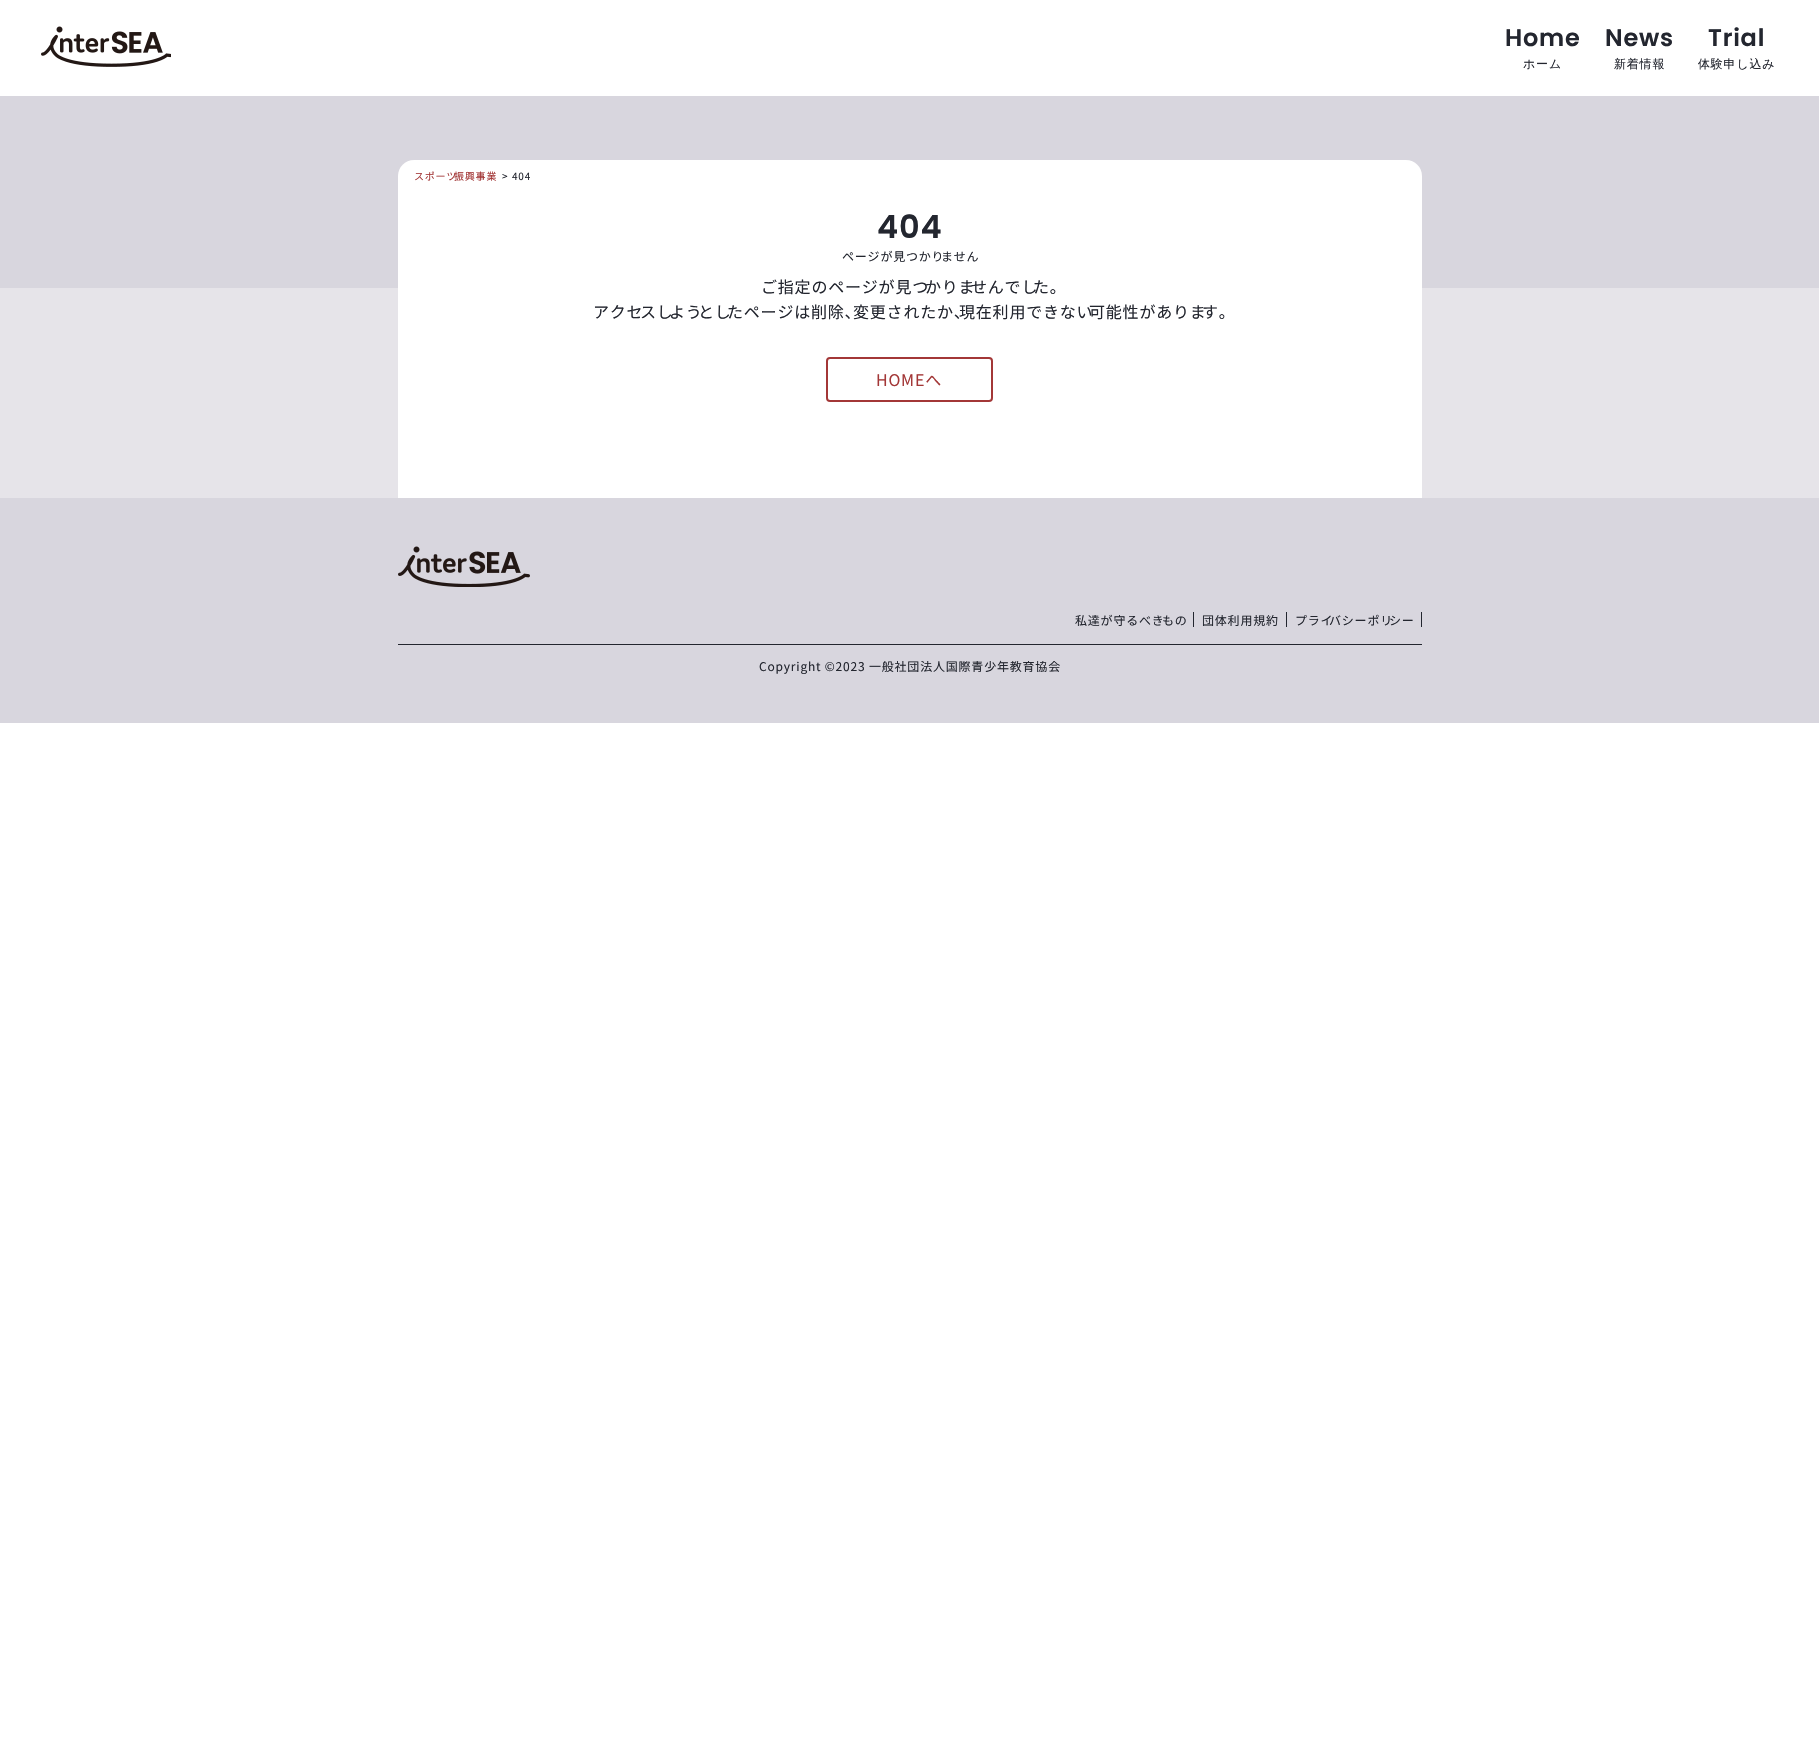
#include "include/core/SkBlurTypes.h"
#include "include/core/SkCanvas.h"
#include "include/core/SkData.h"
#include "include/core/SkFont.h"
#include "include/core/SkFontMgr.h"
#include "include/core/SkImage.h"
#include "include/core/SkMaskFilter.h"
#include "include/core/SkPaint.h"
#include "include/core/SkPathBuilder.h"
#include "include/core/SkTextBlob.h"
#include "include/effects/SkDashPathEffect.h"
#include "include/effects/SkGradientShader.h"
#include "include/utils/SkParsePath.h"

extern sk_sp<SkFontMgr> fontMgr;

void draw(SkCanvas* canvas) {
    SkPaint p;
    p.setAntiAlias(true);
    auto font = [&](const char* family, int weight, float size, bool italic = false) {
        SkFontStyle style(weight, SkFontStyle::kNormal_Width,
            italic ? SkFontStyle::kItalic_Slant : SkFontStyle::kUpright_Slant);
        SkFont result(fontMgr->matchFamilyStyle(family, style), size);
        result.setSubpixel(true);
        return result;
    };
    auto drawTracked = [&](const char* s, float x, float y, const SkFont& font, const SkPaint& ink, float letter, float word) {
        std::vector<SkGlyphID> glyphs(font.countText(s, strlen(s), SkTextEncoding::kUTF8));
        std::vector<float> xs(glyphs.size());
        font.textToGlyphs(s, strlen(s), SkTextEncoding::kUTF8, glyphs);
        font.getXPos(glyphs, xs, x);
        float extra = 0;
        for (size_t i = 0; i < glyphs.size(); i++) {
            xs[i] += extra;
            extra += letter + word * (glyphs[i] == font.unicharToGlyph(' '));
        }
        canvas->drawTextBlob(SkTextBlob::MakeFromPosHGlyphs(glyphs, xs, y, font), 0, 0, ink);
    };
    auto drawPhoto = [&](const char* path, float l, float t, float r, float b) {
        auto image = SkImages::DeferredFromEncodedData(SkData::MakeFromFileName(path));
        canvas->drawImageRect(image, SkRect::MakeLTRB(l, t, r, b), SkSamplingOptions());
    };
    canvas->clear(0xFFFFFFFF);
    p.setColor(0xFFD8D6DE);
    canvas->drawRect(SkRect::MakeLTRB(0, 96, 1819, 288), p);
    drawPhoto("media/1.png", 41, 26, 171, 67);
    auto font1 = font("Poppins", 600, 24);
    p.setColor(0xFF23262F);
    drawTracked("Home", 1505, 46, font1, p, 0.8f, 0);
    auto font2 = font("WenQuanYi Zen Hei", 500, 12);
    drawTracked("ホーム", 1523, 68, font2, p, 0.8f, 0);
    drawTracked("News", 1605, 46, font1, p, 0.8f, 0);
    drawTracked("新着情報", 1614, 68, font2, p, 0.8f, 0);
    drawTracked("Trial", 1708, 46, font1, p, 0.8f, 0);
    drawTracked("体験申し込み", 1698, 68, font2, p, 0.8f, 0);
    p.setColor(0xFFE6E4E9);
    canvas->drawRect(SkRect::MakeLTRB(0, 288, 1819, 498), p);
    p.setColor(0xFFFFFFFF);
    canvas->drawPath(SkPathBuilder().moveTo(414, 160).lineTo(1406, 160).cubicTo(1415, 160, 1422, 167, 1422, 176).lineTo(1422, 498).lineTo(398, 498).lineTo(398, 176).cubicTo(398, 167, 405, 160, 414, 160).close().detach(), p);
    auto font3 = font("Noto Sans JP", 400, 10);
    p.setColor(0xFFA33737);
    drawTracked("スポーツ", 414, 180, font3, p, 0.8f, 0);
    drawTracked("振興事業", 454, 180, font3, p, 0.8f, 0);
    p.setColor(0xFF23262F);
    drawTracked(">", 502, 180, font3, p, 0.8f, 0);
    drawTracked("404", 512, 180, font3, p, 0.8f, 0);
    auto font4 = font("Poppins", 600, 32);
    drawTracked("404", 877, 238, font4, p, 0.8f, 0);
    auto font5 = font("Noto Sans JP", 400, 12);
    drawTracked("ページが見つかり", 842, 261, font5, p, 0.8f, 0);
    drawTracked("ません", 941, 261, font5, p, 0.8f, 0);
    auto font6 = font("Noto Sans JP", 400, 16);
    drawTracked("ご指定のページが見つ", 761, 293, font6, p, 0.8f, 0);
    drawTracked("かりま", 925, 293, font6, p, 0.8f, 0);
    drawTracked("せんでし", 971, 293, font6, p, 0.8f, 0);
    drawTracked("た。", 1033, 293, font6, p, 0.8f, 0);
    drawTracked("アクセ", 593, 318, font6, p, 0.8f, 0);
    drawTracked("スし", 640, 318, font6, p, 0.8f, 0);
    drawTracked("よう", 669, 318, font6, p, 0.8f, 0);
    drawTracked("とし", 698, 318, font6, p, 0.8f, 0);
    drawTracked("たページは削除、", 727, 318, font6, p, 0.8f, 0);
    drawTracked("変更されたか、", 853, 318, font6, p, 0.8f, 0);
    drawTracked("現在利用できない", 959, 318, font6, p, 0.8f, 0);
    drawTracked("可能性がありま", 1089, 318, font6, p, 0.8f, 0);
    drawTracked("す。", 1202, 318, font6, p, 0.8f, 0);
    p.setStyle(SkPaint::kStroke_Style);
    p.setStrokeWidth(2);
    p.setColor(0xFFA33737);
    canvas->drawRoundRect(SkRect::MakeLTRB(827, 358, 992, 401), 3, 3, p);
    p.setStyle(SkPaint::kFill_Style);
    drawTracked("HOMEへ", 876, 386, font6, p, 0.8f, 0);
    p.setColor(0xFFD8D6DE);
    canvas->drawRect(SkRect::MakeLTRB(0, 498, 1819, 723), p);
    drawPhoto("media/2.png", 398, 546, 530, 587);
    p.setColor(0xFF23262F);
    drawTracked("私達が守るべき", 1075, 625, font5, p, 0.8f, 0);
    drawTracked("もの", 1162, 625, font5, p, 0.8f, 0);
    canvas->drawRect(SkRect::MakeLTRB(1193, 612, 1194, 627), p);
    drawTracked("団体利用規約", 1202, 625, font5, p, 0.8f, 0);
    canvas->drawRect(SkRect::MakeLTRB(1286, 612, 1287, 627), p);
    drawTracked("プライ", 1295, 625, font5, p, 0.8f, 0);
    drawTracked("バシーポリ", 1329, 625, font5, p, 0.8f, 0);
    drawTracked("シー", 1389, 625, font5, p, 0.8f, 0);
    canvas->drawRect(SkRect::MakeLTRB(1421, 612, 1422, 627), p);
    canvas->drawRect(SkRect::MakeLTRB(398, 644, 1422, 645), p);
    drawTracked("Copyright ©2023 一般社団法人国際青少年教育協会", 759, 671, font5, p, 0.8f, 0);
}
